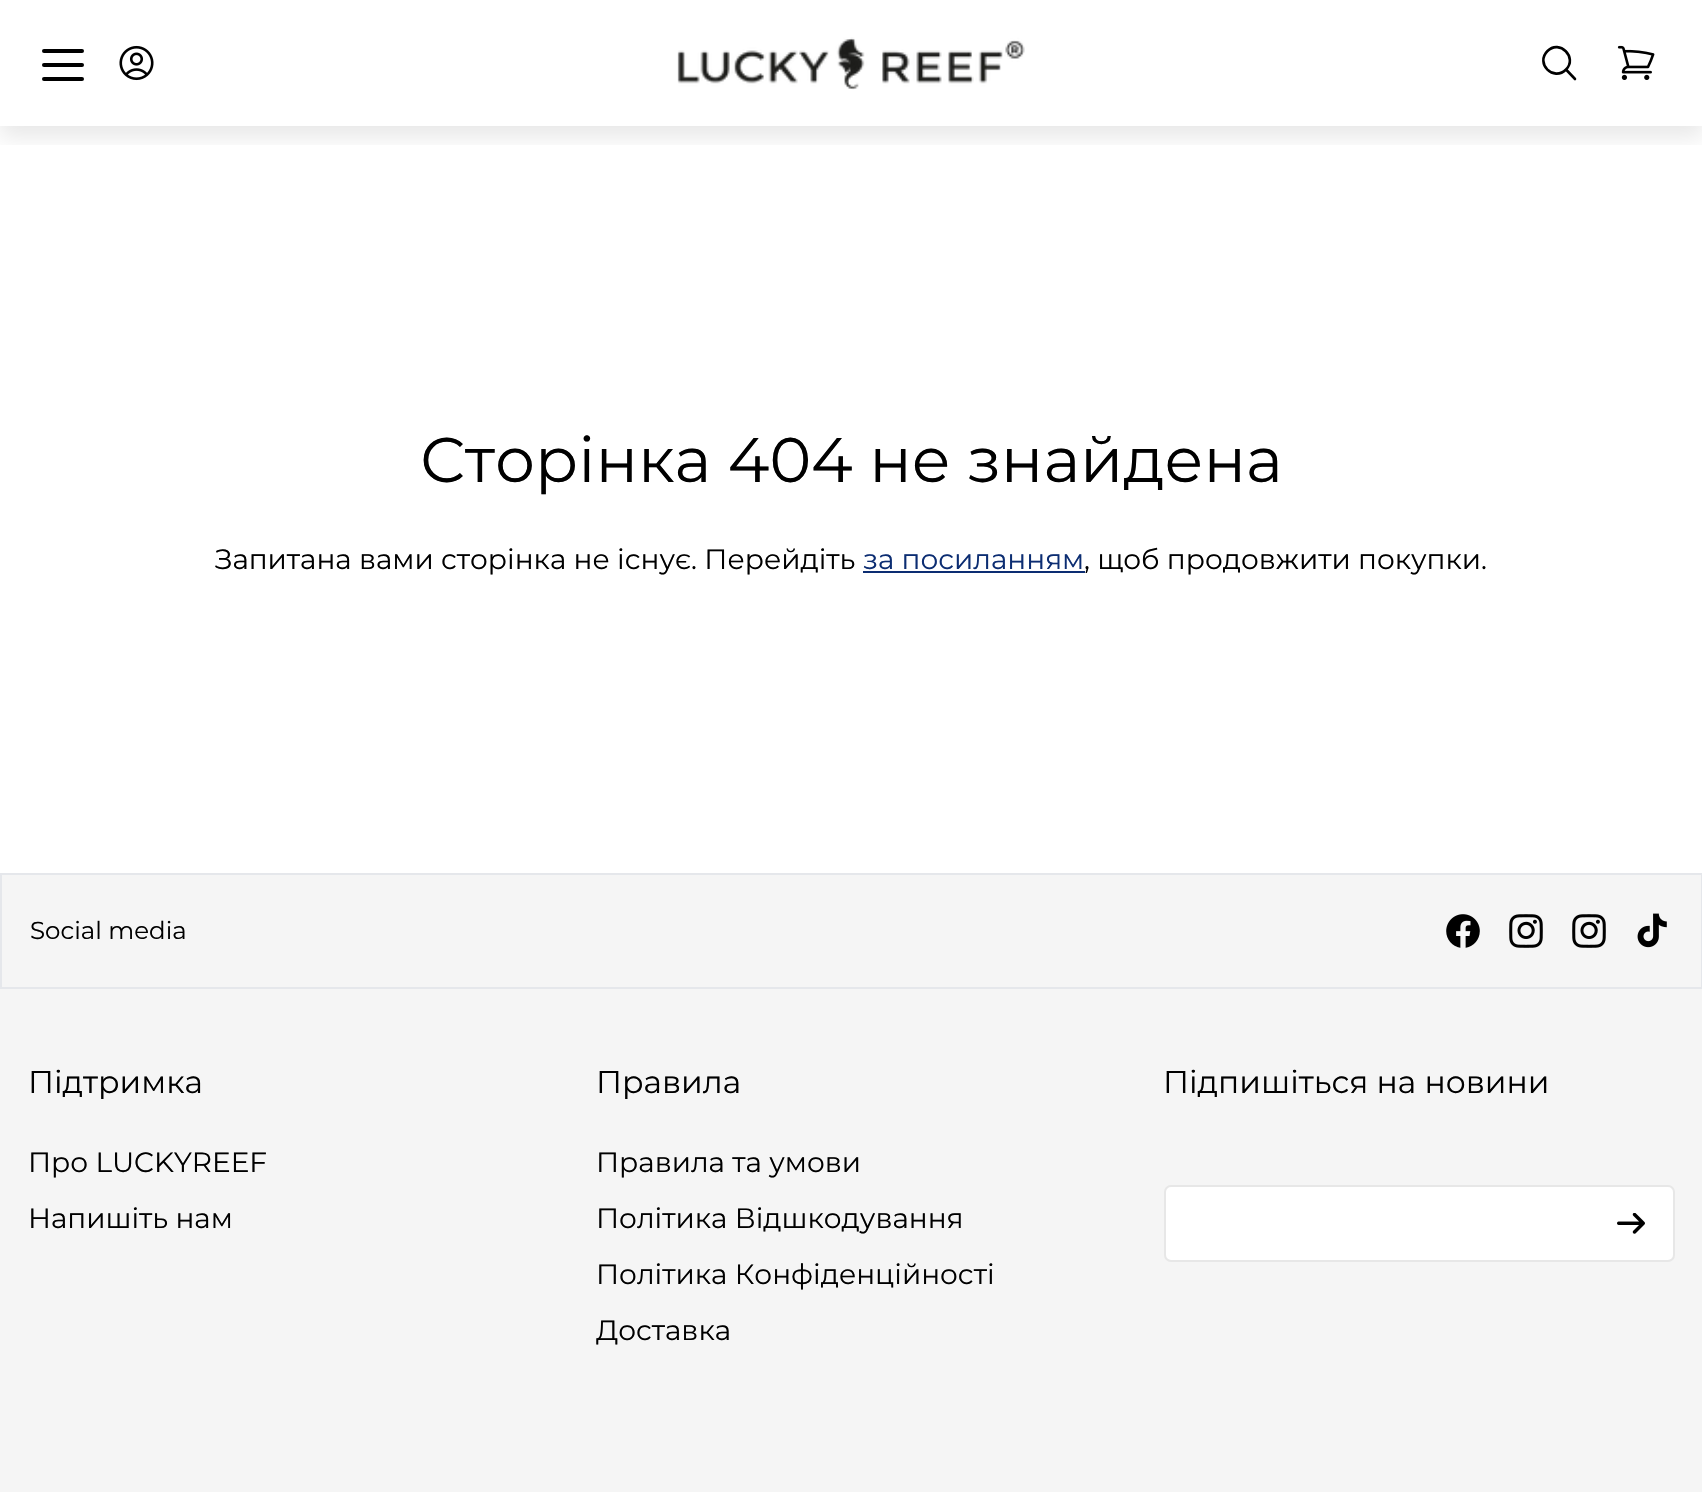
#include "include/core/SkBlurTypes.h"
#include "include/core/SkCanvas.h"
#include "include/core/SkData.h"
#include "include/core/SkFont.h"
#include "include/core/SkFontMgr.h"
#include "include/core/SkImage.h"
#include "include/core/SkMaskFilter.h"
#include "include/core/SkPaint.h"
#include "include/core/SkPathBuilder.h"
#include "include/core/SkTextBlob.h"
#include "include/effects/SkDashPathEffect.h"
#include "include/effects/SkGradientShader.h"
#include "include/utils/SkParsePath.h"

extern sk_sp<SkFontMgr> fontMgr;

void draw(SkCanvas* canvas) {
    SkPaint p;
    p.setAntiAlias(true);
    auto font = [&](const char* family, int weight, float size, bool italic = false) {
        SkFontStyle style(weight, SkFontStyle::kNormal_Width,
            italic ? SkFontStyle::kItalic_Slant : SkFontStyle::kUpright_Slant);
        SkFont result(fontMgr->matchFamilyStyle(family, style), size);
        result.setSubpixel(true);
        return result;
    };
    auto drawPhoto = [&](const char* path, float l, float t, float r, float b) {
        auto image = SkImages::DeferredFromEncodedData(SkData::MakeFromFileName(path));
        canvas->drawImageRect(image, SkRect::MakeLTRB(l, t, r, b), SkSamplingOptions());
    };
    canvas->clear(0xFFFFFFFF);
    canvas->save();
    canvas->clipRect(SkRect::MakeLTRB(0, 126, 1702, 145));
    p.setColor(0x17000000);
    p.setMaskFilter(SkMaskFilter::MakeBlur(kNormal_SkBlurStyle, 10.5f));
    canvas->drawRect(SkRect::MakeLTRB(0, 11, 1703, 137), p);
    p.setMaskFilter(nullptr);
    canvas->restore();
    p.setColor(0xFF000000);
    canvas->drawRoundRect(SkRect::MakeLTRB(42, 49, 84, 53), 2, 2, p);
    canvas->drawRoundRect(SkRect::MakeLTRB(42, 63, 84, 67), 2, 2, p);
    canvas->drawRoundRect(SkRect::MakeLTRB(42, 77, 84, 81), 2, 2, p);
    drawPhoto("media/1.png", 119, 45, 154, 81);
    drawPhoto("media/2.png", 677, 37, 1025, 90);
    p.setStyle(SkPaint::kStroke_Style);
    p.setStrokeWidth(2.6f);
    p.setStrokeCap(SkPaint::kRound_Cap);
    p.setStrokeJoin(SkPaint::kRound_Join);
    canvas->drawPath(SkPathBuilder().moveTo(1575, 79).lineTo(1566, 69.5f).moveTo(1566, 69.5f).cubicTo(1578, 57.5f, 1559.5f, 39, 1547.5f, 51).cubicTo(1535, 63.5f, 1553.5f, 82, 1566, 69.5f).close().detach(), p);
    drawPhoto("media/3.png", 1617, 45, 1655, 80);
    auto font1 = font("Montserrat", 400, 63);
    p.setStyle(SkPaint::kFill_Style);
    canvas->drawString("Сторінка 404 не знайдена", 420, 482, font1, p);
    auto font2 = font("Montserrat", 400, 28);
    canvas->drawString("Запитана вами сторінка не існує. Перейдіть", 215, 569, font2, p);
    p.setColor(0xFF0C2D72);
    canvas->drawString("за посиланням", 863, 569, font2, p);
    canvas->drawRect(SkRect::MakeLTRB(863, 571, 1085, 573), p);
    p.setColor(0xFF000000);
    canvas->drawString(", щоб продовжити покупки.", 1084, 569, font2, p);
    p.setColor(0xFFF5F5F5);
    canvas->drawRect(SkRect::MakeLTRB(1, 874, 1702, 988), p);
    p.setStyle(SkPaint::kStroke_Style);
    p.setStrokeWidth(2);
    p.setStrokeCap(SkPaint::kButt_Cap);
    p.setStrokeJoin(SkPaint::kMiter_Join);
    p.setColor(0xFFE5E7EB);
    canvas->drawRect(SkRect::MakeLTRB(1, 874, 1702, 988), p);
    auto font3 = font("Montserrat", 400, 24.5f);
    p.setStyle(SkPaint::kFill_Style);
    p.setColor(0xFF000000);
    canvas->drawString("Social media", 30, 939, font3, p);
    drawPhoto("media/4.png", 1446, 914, 1480, 948);
    drawPhoto("media/5.png", 1509, 914, 1543, 948);
    drawPhoto("media/5.png", 1572, 914, 1606, 948);
    drawPhoto("media/6.png", 1637, 913, 1667, 948);
    p.setColor(0xFFF5F5F5);
    canvas->drawRect(SkRect::MakeLTRB(0, 989, 1702, 1492), p);
    auto font4 = font("Montserrat", 400, 31.5f);
    p.setColor(0xFF000000);
    canvas->drawString("Підтримка", 28, 1093, font4, p);
    canvas->drawString("Про LUCKYREEF", 28, 1172, font2, p);
    canvas->drawString("Напишіть нам", 28, 1228, font2, p);
    canvas->drawString("Правила", 596, 1093, font4, p);
    {
        const struct { const char* s; float x, y; } items[] = {
            {"Правила та умови", 596, 1172},
            {"Політика Відшкодування", 596, 1228},
            {"Політика Конфіденційності", 596, 1284},
            {"Доставка", 596, 1340},
        };
        for (auto [s, x, y] : items) {
            canvas->drawString(s, x, y, font2, p);
        }
    }
    canvas->drawString("Підпишіться на новини", 1163, 1093, font4, p);
    p.setColor(0xFFFFFFFF);
    canvas->drawRoundRect(SkRect::MakeLTRB(1165, 1186, 1674, 1261), 6, 6, p);
    p.setStyle(SkPaint::kStroke_Style);
    p.setColor(0xFFE7E7E7);
    canvas->drawRoundRect(SkRect::MakeLTRB(1165, 1186, 1674, 1261), 6, 6, p);
    drawPhoto("media/7.png", 1617, 1213, 1645, 1234);
}
